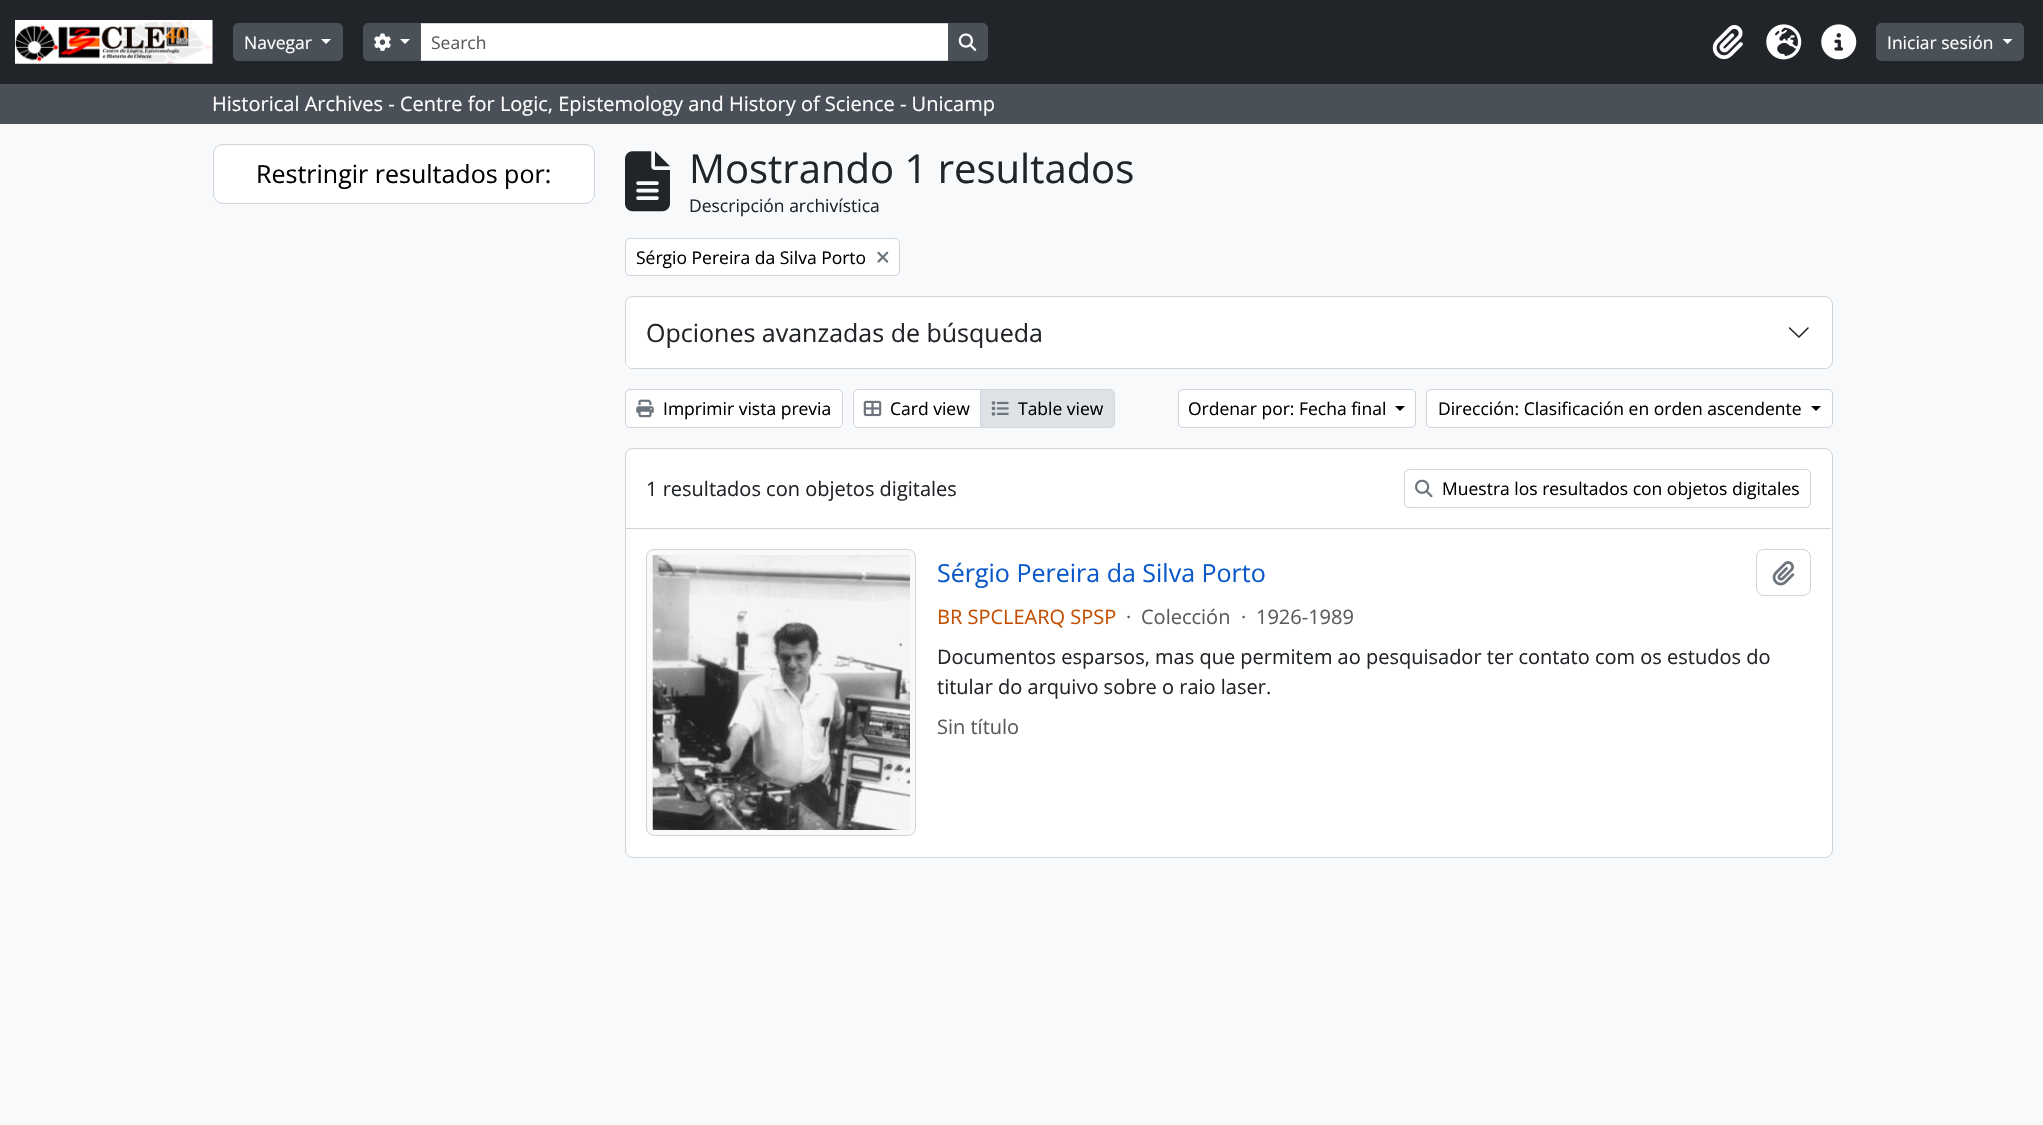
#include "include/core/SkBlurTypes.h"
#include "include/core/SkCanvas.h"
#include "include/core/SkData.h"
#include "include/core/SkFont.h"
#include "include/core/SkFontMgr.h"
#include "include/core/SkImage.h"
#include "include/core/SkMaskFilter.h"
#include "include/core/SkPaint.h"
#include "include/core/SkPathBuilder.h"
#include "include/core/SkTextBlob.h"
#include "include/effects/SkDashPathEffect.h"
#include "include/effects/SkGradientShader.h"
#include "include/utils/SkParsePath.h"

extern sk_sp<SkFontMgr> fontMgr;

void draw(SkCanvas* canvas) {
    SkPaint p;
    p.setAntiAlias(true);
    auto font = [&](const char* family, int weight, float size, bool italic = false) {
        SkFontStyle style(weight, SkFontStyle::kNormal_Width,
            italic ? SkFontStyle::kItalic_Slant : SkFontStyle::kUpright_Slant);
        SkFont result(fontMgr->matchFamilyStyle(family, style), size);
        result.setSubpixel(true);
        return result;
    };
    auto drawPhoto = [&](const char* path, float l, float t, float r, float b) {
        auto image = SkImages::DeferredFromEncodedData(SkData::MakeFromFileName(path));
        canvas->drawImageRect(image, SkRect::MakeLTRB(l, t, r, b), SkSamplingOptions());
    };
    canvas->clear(0xFFF8F9FA);
    p.setColor(0xFF212529);
    canvas->drawRect(SkRect::MakeLTRB(0, 0, 2043, 84), p);
    drawPhoto("media/1.png", 15, 20, 213, 64);
    p.setColor(0xFF495057);
    canvas->drawRoundRect(SkRect::MakeLTRB(233.5f, 23.5f, 342.5f, 60.5f), 4.5f, 4.5f, p);
    p.setStyle(SkPaint::kStroke_Style);
    p.setStrokeWidth(1);
    canvas->drawRoundRect(SkRect::MakeLTRB(233.5f, 23.5f, 342.5f, 60.5f), 4.5f, 4.5f, p);
    auto font1 = font("Open Sans", 400, 17.5f);
    p.setStyle(SkPaint::kFill_Style);
    p.setColor(0xFFFFFFFF);
    canvas->drawString("Navegar", 244, 49, font1, p);
    canvas->drawPath(SkPathBuilder().moveTo(321, 39).lineTo(331, 39).lineTo(326, 44).close().detach(), p);
    canvas->drawRect(SkRect::MakeLTRB(420.5f, 23.5f, 948.5f, 60.5f), p);
    p.setStyle(SkPaint::kStroke_Style);
    p.setColor(0xFFCED4DA);
    canvas->drawRect(SkRect::MakeLTRB(420.5f, 23.5f, 948.5f, 60.5f), p);
    p.setStyle(SkPaint::kFill_Style);
    p.setColor(0xFF495057);
    canvas->drawPath(SkPathBuilder().moveTo(368, 23.5f).lineTo(420.5f, 23.5f).lineTo(420.5f, 60.5f).lineTo(368, 60.5f).cubicTo(365.5f, 60.5f, 363.5f, 58.5f, 363.5f, 56).lineTo(363.5f, 28).cubicTo(363.5f, 25.5f, 365.5f, 23.5f, 368, 23.5f).close().detach(), p);
    p.setStyle(SkPaint::kStroke_Style);
    canvas->drawPath(SkPathBuilder().moveTo(368, 23.5f).lineTo(420.5f, 23.5f).lineTo(420.5f, 60.5f).lineTo(368, 60.5f).cubicTo(365.5f, 60.5f, 363.5f, 58.5f, 363.5f, 56).lineTo(363.5f, 28).cubicTo(363.5f, 25.5f, 365.5f, 23.5f, 368, 23.5f).close().detach(), p);
    drawPhoto("media/2.png", 374, 33, 391, 51);
    p.setStyle(SkPaint::kFill_Style);
    p.setColor(0xFFFFFFFF);
    canvas->drawPath(SkPathBuilder().moveTo(400, 39).lineTo(410, 39).lineTo(405, 44).close().detach(), p);
    p.setColor(0xFF595C5F);
    canvas->drawString("Search", 431, 49, font1, p);
    p.setColor(0xFF495057);
    canvas->drawPath(SkPathBuilder().moveTo(948.5f, 23.5f).lineTo(983, 23.5f).cubicTo(985.5f, 23.5f, 987.5f, 25.5f, 987.5f, 28).lineTo(987.5f, 56).cubicTo(987.5f, 58.5f, 985.5f, 60.5f, 983, 60.5f).lineTo(948.5f, 60.5f).close().detach(), p);
    p.setStyle(SkPaint::kStroke_Style);
    canvas->drawPath(SkPathBuilder().moveTo(948.5f, 23.5f).lineTo(983, 23.5f).cubicTo(985.5f, 23.5f, 987.5f, 25.5f, 987.5f, 28).lineTo(987.5f, 56).cubicTo(987.5f, 58.5f, 985.5f, 60.5f, 983, 60.5f).lineTo(948.5f, 60.5f).close().detach(), p);
    drawPhoto("media/3.png", 958, 33, 977, 51);
    drawPhoto("media/4.png", 1712, 25, 1743, 60);
    drawPhoto("media/5.png", 1766, 24, 1802, 60);
    drawPhoto("media/6.png", 1821, 24, 1857, 60);
    p.setStyle(SkPaint::kFill_Style);
    canvas->drawRoundRect(SkRect::MakeLTRB(1876.5f, 23.5f, 2023.5f, 60.5f), 4.5f, 4.5f, p);
    p.setStyle(SkPaint::kStroke_Style);
    canvas->drawRoundRect(SkRect::MakeLTRB(1876.5f, 23.5f, 2023.5f, 60.5f), 4.5f, 4.5f, p);
    p.setStyle(SkPaint::kFill_Style);
    p.setColor(0xFFFFFFFF);
    canvas->drawString("Iniciar sesión", 1887, 49, font1, p);
    canvas->drawPath(SkPathBuilder().moveTo(2002.5f, 39).lineTo(2012.5f, 39).lineTo(2007.5f, 44).close().detach(), p);
    p.setColor(0xFF495057);
    canvas->drawRect(SkRect::MakeLTRB(0, 84, 2043, 124), p);
    auto font2 = font("Open Sans", 400, 20);
    p.setColor(0xFFFFFFFF);
    canvas->drawString("Historical Archives - Centre for Logic, Epistemology and History of Science - Unicamp", 212, 111, font2, p);
    canvas->drawRoundRect(SkRect::MakeLTRB(213.5f, 144.5f, 594.5f, 203.5f), 9.5f, 9.5f, p);
    p.setStyle(SkPaint::kStroke_Style);
    p.setColor(0xFFCED4DA);
    canvas->drawRoundRect(SkRect::MakeLTRB(213.5f, 144.5f, 594.5f, 203.5f), 9.5f, 9.5f, p);
    auto font3 = font("Open Sans", 400, 25);
    p.setStyle(SkPaint::kFill_Style);
    p.setColor(0xFF000000);
    canvas->drawString("Restringir resultados por:", 256, 183, font3, p);
    drawPhoto("media/7.png", 625, 151, 670, 212);
    auto font4 = font("Open Sans", 400, 40);
    p.setColor(0xFF212529);
    canvas->drawString("Mostrando 1 resultados", 689, 183, font4, p);
    canvas->drawString("Descripción archivística", 689, 212, font1, p);
    p.setColor(0xFFFFFFFF);
    canvas->drawRoundRect(SkRect::MakeLTRB(625.5f, 238.5f, 899.5f, 275.5f), 4.5f, 4.5f, p);
    p.setStyle(SkPaint::kStroke_Style);
    p.setColor(0xFFCED4DA);
    canvas->drawRoundRect(SkRect::MakeLTRB(625.5f, 238.5f, 899.5f, 275.5f), 4.5f, 4.5f, p);
    p.setStyle(SkPaint::kFill_Style);
    p.setColor(0xFF000000);
    canvas->drawString("Sérgio Pereira da Silva Porto", 636, 264, font1, p);
    drawPhoto("media/8.png", 877, 251, 889, 263);
    p.setColor(0xFFFFFFFF);
    canvas->drawRoundRect(SkRect::MakeLTRB(625.5f, 296.5f, 1832.5f, 368.5f), 7.5f, 7.5f, p);
    p.setStyle(SkPaint::kStroke_Style);
    p.setColor(0xFFCED4DA);
    canvas->drawRoundRect(SkRect::MakeLTRB(625.5f, 296.5f, 1832.5f, 368.5f), 7.5f, 7.5f, p);
    p.setStyle(SkPaint::kFill_Style);
    p.setColor(0xFFFFFFFF);
    canvas->drawRoundRect(SkRect::MakeLTRB(626, 298, 1831, 368), 6, 6, p);
    p.setColor(0xFF212529);
    canvas->drawString("Opciones avanzadas de búsqueda", 646, 342, font3, p);
    p.setStyle(SkPaint::kStroke_Style);
    p.setStrokeWidth(1.6f);
    p.setStrokeCap(SkPaint::kRound_Cap);
    p.setStrokeJoin(SkPaint::kRound_Join);
    canvas->drawPath(SkPathBuilder().moveTo(1789.5f, 328).lineTo(1799, 337).lineTo(1808, 328).detach(), p);
    p.setStyle(SkPaint::kFill_Style);
    p.setColor(0xFFFFFFFF);
    canvas->drawRoundRect(SkRect::MakeLTRB(625.5f, 389.5f, 842.5f, 427.5f), 4.5f, 4.5f, p);
    p.setStyle(SkPaint::kStroke_Style);
    p.setStrokeWidth(1);
    p.setStrokeCap(SkPaint::kButt_Cap);
    p.setStrokeJoin(SkPaint::kMiter_Join);
    p.setColor(0xFFCED4DA);
    canvas->drawRoundRect(SkRect::MakeLTRB(625.5f, 389.5f, 842.5f, 427.5f), 4.5f, 4.5f, p);
    drawPhoto("media/9.png", 636, 399, 654, 418);
    p.setStyle(SkPaint::kFill_Style);
    p.setColor(0xFF000000);
    canvas->drawString("Imprimir vista previa", 663, 415, font1, p);
    p.setColor(0xFFFFFFFF);
    canvas->drawPath(SkPathBuilder().moveTo(858, 389.5f).lineTo(980.5f, 389.5f).lineTo(980.5f, 427.5f).lineTo(858, 427.5f).cubicTo(855.5f, 427.5f, 853.5f, 425.5f, 853.5f, 423).lineTo(853.5f, 394).cubicTo(853.5f, 391.5f, 855.5f, 389.5f, 858, 389.5f).close().detach(), p);
    p.setStyle(SkPaint::kStroke_Style);
    p.setColor(0xFFCED4DA);
    canvas->drawPath(SkPathBuilder().moveTo(858, 389.5f).lineTo(980.5f, 389.5f).lineTo(980.5f, 427.5f).lineTo(858, 427.5f).cubicTo(855.5f, 427.5f, 853.5f, 425.5f, 853.5f, 423).lineTo(853.5f, 394).cubicTo(853.5f, 391.5f, 855.5f, 389.5f, 858, 389.5f).close().detach(), p);
    drawPhoto("media/10.png", 863, 400, 882, 417);
    p.setStyle(SkPaint::kFill_Style);
    p.setColor(0xFF000000);
    canvas->drawString("Card view", 890, 415, font1, p);
    p.setColor(0xFFDEE2E6);
    canvas->drawPath(SkPathBuilder().moveTo(980.5f, 389.5f).lineTo(1110, 389.5f).cubicTo(1112.5f, 389.5f, 1114.5f, 391.5f, 1114.5f, 394).lineTo(1114.5f, 423).cubicTo(1114.5f, 425.5f, 1112.5f, 427.5f, 1110, 427.5f).lineTo(980.5f, 427.5f).close().detach(), p);
    p.setStyle(SkPaint::kStroke_Style);
    p.setColor(0xFFD3D8DE);
    canvas->drawPath(SkPathBuilder().moveTo(980.5f, 389.5f).lineTo(1110, 389.5f).cubicTo(1112.5f, 389.5f, 1114.5f, 391.5f, 1114.5f, 394).lineTo(1114.5f, 423).cubicTo(1114.5f, 425.5f, 1112.5f, 427.5f, 1110, 427.5f).lineTo(980.5f, 427.5f).close().detach(), p);
    drawPhoto("media/11.png", 991, 401, 1009, 416);
    p.setStyle(SkPaint::kFill_Style);
    p.setColor(0xFF000000);
    canvas->drawString("Table view", 1018, 415, font1, p);
    p.setColor(0xFFFFFFFF);
    canvas->drawRoundRect(SkRect::MakeLTRB(1178.5f, 389.5f, 1415.5f, 427.5f), 4.5f, 4.5f, p);
    p.setStyle(SkPaint::kStroke_Style);
    p.setColor(0xFFCED4DA);
    canvas->drawRoundRect(SkRect::MakeLTRB(1178.5f, 389.5f, 1415.5f, 427.5f), 4.5f, 4.5f, p);
    p.setStyle(SkPaint::kFill_Style);
    p.setColor(0xFF000000);
    canvas->drawString("Ordenar por: Fecha final", 1188, 415, font1, p);
    canvas->drawPath(SkPathBuilder().moveTo(1395, 406).lineTo(1405, 406).lineTo(1400, 411).close().detach(), p);
    p.setColor(0xFFFFFFFF);
    canvas->drawRoundRect(SkRect::MakeLTRB(1426.5f, 389.5f, 1832.5f, 427.5f), 4.5f, 4.5f, p);
    p.setStyle(SkPaint::kStroke_Style);
    p.setColor(0xFFCED4DA);
    canvas->drawRoundRect(SkRect::MakeLTRB(1426.5f, 389.5f, 1832.5f, 427.5f), 4.5f, 4.5f, p);
    p.setStyle(SkPaint::kFill_Style);
    p.setColor(0xFF000000);
    canvas->drawString("Dirección: Clasificación en orden ascendente", 1438, 415, font1, p);
    canvas->drawPath(SkPathBuilder().moveTo(1811, 406).lineTo(1821, 406).lineTo(1816, 411).close().detach(), p);
    p.setColor(0xFFFFFFFF);
    canvas->drawRoundRect(SkRect::MakeLTRB(625.5f, 448.5f, 1832.5f, 857.5f), 7.5f, 7.5f, p);
    p.setStyle(SkPaint::kStroke_Style);
    p.setColor(0xFFCED4DA);
    canvas->drawRoundRect(SkRect::MakeLTRB(625.5f, 448.5f, 1832.5f, 857.5f), 7.5f, 7.5f, p);
    p.setStyle(SkPaint::kFill_Style);
    canvas->drawRect(SkRect::MakeLTRB(626, 528, 1831, 529), p);
    p.setColor(0xFF212529);
    canvas->drawString("1 resultados con objetos digitales", 646, 496, font2, p);
    p.setStyle(SkPaint::kStroke_Style);
    p.setColor(0xFFCED4DA);
    canvas->drawRoundRect(SkRect::MakeLTRB(1404.5f, 469.5f, 1810.5f, 507.5f), 4.5f, 4.5f, p);
    drawPhoto("media/12.png", 1415, 479, 1433, 498);
    p.setStyle(SkPaint::kFill_Style);
    p.setColor(0xFF000000);
    canvas->drawString("Muestra los resultados con objetos digitales", 1442, 495, font1, p);
    p.setColor(0xFFF8F9FA);
    canvas->drawRoundRect(SkRect::MakeLTRB(646.5f, 549.5f, 915.5f, 835.5f), 7.5f, 7.5f, p);
    p.setStyle(SkPaint::kStroke_Style);
    p.setColor(0xFFCED4DA);
    canvas->drawRoundRect(SkRect::MakeLTRB(646.5f, 549.5f, 915.5f, 835.5f), 7.5f, 7.5f, p);
    drawPhoto("media/13.png", 652, 555, 910, 830);
    p.setStyle(SkPaint::kFill_Style);
    p.setColor(0xFF0A58CA);
    canvas->drawString("Sérgio Pereira da Silva Porto", 937, 582, font3, p);
    p.setStyle(SkPaint::kStroke_Style);
    p.setColor(0xFFCED4DA);
    canvas->drawRoundRect(SkRect::MakeLTRB(1756.5f, 549.5f, 1810.5f, 595.5f), 7.5f, 7.5f, p);
    drawPhoto("media/14.png", 1772, 561, 1795, 586);
    p.setStyle(SkPaint::kFill_Style);
    p.setColor(0xFFC44E00);
    canvas->drawString("BR SPCLEARQ SPSP", 937, 624, font2, p);
    p.setColor(0xFF595C5F);
    {
        const struct { const char* s; float x, y; } items[] = {
            {"·", 1126, 624},
            {"Colección", 1141, 624},
            {"·", 1241, 624},
            {"1926-1989", 1256, 624},
        };
        for (auto [s, x, y] : items) {
            canvas->drawString(s, x, y, font2, p);
        }
    }
    p.setColor(0xFF212529);
    canvas->drawString("Documentos esparsos, mas que permitem ao pesquisador ter contato com os estudos do", 937, 664, font2, p);
    canvas->drawString("titular do arquivo sobre o raio laser.", 937, 694, font2, p);
    p.setColor(0xFF595C5F);
    canvas->drawString("Sin título", 937, 734, font2, p);
}
